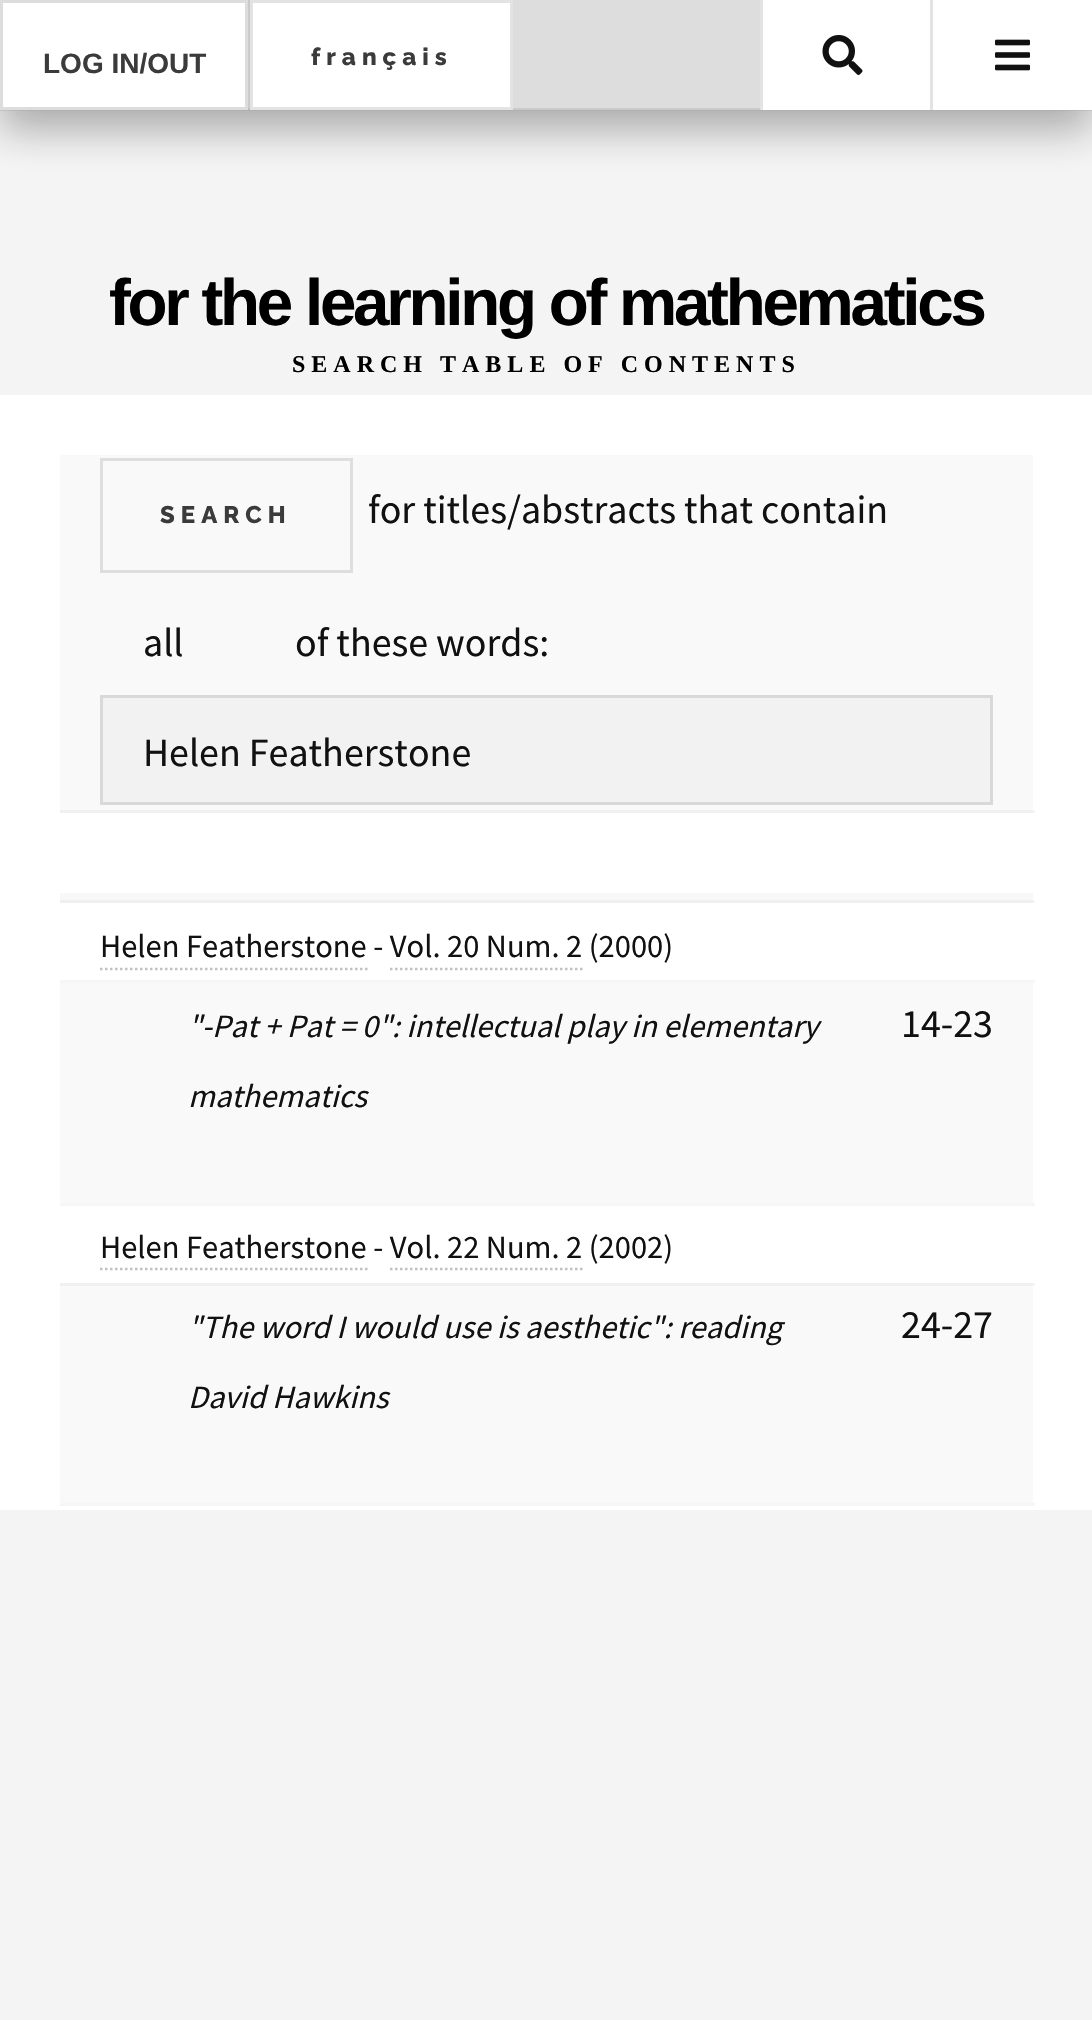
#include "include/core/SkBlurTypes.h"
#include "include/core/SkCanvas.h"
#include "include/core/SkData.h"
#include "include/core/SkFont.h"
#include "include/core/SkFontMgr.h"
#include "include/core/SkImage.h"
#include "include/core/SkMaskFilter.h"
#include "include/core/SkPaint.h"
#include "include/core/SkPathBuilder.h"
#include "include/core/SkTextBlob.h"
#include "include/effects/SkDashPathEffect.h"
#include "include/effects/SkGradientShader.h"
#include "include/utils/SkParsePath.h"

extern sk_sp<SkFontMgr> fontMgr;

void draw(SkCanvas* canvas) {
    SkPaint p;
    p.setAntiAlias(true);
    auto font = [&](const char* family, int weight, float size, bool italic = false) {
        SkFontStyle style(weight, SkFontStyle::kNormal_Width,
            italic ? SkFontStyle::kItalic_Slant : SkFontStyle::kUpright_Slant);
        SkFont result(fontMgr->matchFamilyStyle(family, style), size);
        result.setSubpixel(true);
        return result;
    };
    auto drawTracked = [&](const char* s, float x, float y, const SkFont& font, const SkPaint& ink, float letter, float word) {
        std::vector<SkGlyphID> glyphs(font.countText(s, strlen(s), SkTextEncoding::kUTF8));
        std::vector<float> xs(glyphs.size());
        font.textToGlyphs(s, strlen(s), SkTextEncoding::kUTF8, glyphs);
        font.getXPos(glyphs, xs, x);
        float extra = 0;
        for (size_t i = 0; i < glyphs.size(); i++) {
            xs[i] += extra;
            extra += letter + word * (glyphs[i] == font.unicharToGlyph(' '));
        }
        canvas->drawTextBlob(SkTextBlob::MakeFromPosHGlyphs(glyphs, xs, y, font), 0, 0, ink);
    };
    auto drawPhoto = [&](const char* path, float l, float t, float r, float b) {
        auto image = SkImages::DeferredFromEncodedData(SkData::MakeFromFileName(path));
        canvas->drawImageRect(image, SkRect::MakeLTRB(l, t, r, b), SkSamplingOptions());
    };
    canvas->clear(0xFFF4F4F4);
    p.setColor(0x54111111);
    p.setMaskFilter(SkMaskFilter::MakeBlur(kNormal_SkBlurStyle, 20));
    canvas->drawRect(SkRect::MakeLTRB(0, 20, 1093, 130), p);
    p.setMaskFilter(nullptr);
    p.setColor(0xFFDDDDDD);
    canvas->drawRect(SkRect::MakeLTRB(248, 0, 760, 110), p);
    p.setColor(0x4DA0A0A0);
    canvas->drawRect(SkRect::MakeLTRB(0, 108, 1092, 111), p);
    p.setColor(0xFFFFFFFF);
    canvas->drawRect(SkRect::MakeLTRB(1.5f, 1.5f, 246.5f, 108.5f), p);
    p.setStyle(SkPaint::kStroke_Style);
    p.setStrokeWidth(3);
    p.setColor(0xFFDDDDDD);
    canvas->drawRect(SkRect::MakeLTRB(1.5f, 1.5f, 246.5f, 108.5f), p);
    auto font1 = font("Liberation Sans", 700, 28);
    p.setStyle(SkPaint::kFill_Style);
    p.setColor(0xFF3C3B3B);
    canvas->drawString("LOG IN/OUT", 43, 73, font1, p);
    p.setColor(0x4DA0A0A0);
    canvas->drawRect(SkRect::MakeLTRB(248, 0, 250, 110), p);
    p.setColor(0xFFFFFFFF);
    canvas->drawRect(SkRect::MakeLTRB(251.5f, 1.5f, 511.5f, 108.5f), p);
    p.setStyle(SkPaint::kStroke_Style);
    p.setColor(0xFFE3E3E3);
    canvas->drawRect(SkRect::MakeLTRB(251.5f, 1.5f, 511.5f, 108.5f), p);
    auto font2 = font("Raleway", 800, 24);
    p.setStyle(SkPaint::kFill_Style);
    p.setColor(0xFF3C3B3B);
    drawTracked("français", 311, 65, font2, p, 6, 0);
    p.setColor(0xFFFFFFFF);
    canvas->drawRect(SkRect::MakeLTRB(763, 0, 1092, 110), p);
    p.setColor(0xFFE3E3E3);
    canvas->drawRect(SkRect::MakeLTRB(760, 0, 763, 110), p);
    drawPhoto("media/1.png", 822, 35, 863, 75);
    canvas->drawRect(SkRect::MakeLTRB(930, 0, 933, 110), p);
    drawPhoto("media/2.png", 995, 39, 1030, 71);
    auto font3 = font("Liberation Sans", 700, 65.5f);
    p.setColor(0xFF000000);
    drawTracked("for the learning of mathematics", 109, 325, font3, p, -3.25f, 0);
    auto font4 = font("Liberation Serif", 700, 24);
    drawTracked("SEARCH TABLE OF CONTENTS", 292, 372, font4, p, 6, 0);
    {
        const struct { float l, t, r, b; SkColor color; } items[] = {
            {0, 395, 1092, 1510, 0xFFFFFFFF},
            {1033, 900, 1035, 903, 0xFFF6F6F6},
            {1033, 1283, 1035, 1286, 0xFFF6F6F6},
            {1033, 810, 1035, 813, 0xFFF6F6F6},
            {60, 455, 1033, 810, 0xFFF9F9F9},
            {60, 810, 1033, 813, 0xFFF0F0F0},
        };
        for (auto [l, t, r, b, color] : items) {
            p.setColor(color);
            canvas->drawRect(SkRect::MakeLTRB(l, t, r, b), p);
        }
    }
    p.setStyle(SkPaint::kStroke_Style);
    p.setColor(0xFFDEDEDE);
    canvas->drawRect(SkRect::MakeLTRB(101.5f, 459.5f, 351.5f, 571.5f), p);
    p.setStyle(SkPaint::kFill_Style);
    p.setColor(0xFF3C3B3B);
    drawTracked("SEARCH", 160, 523, font2, p, 6, 0);
    auto font5 = font("Source Sans Pro", 400, 40);
    p.setColor(0xFF111111);
    {
        const struct { const char* s; float x, y; } items[] = {
            {"for titles/abstracts that contain", 368, 523},
            {"all", 143, 656},
            {"of these words:", 295, 656},
        };
        for (auto [s, x, y] : items) {
            canvas->drawString(s, x, y, font5, p);
        }
    }
    p.setColor(0xFFF2F2F2);
    canvas->drawRect(SkRect::MakeLTRB(101.5f, 696.5f, 991.5f, 803.5f), p);
    p.setStyle(SkPaint::kStroke_Style);
    p.setColor(0xFFD9D9D9);
    canvas->drawRect(SkRect::MakeLTRB(101.5f, 696.5f, 991.5f, 803.5f), p);
    p.setStyle(SkPaint::kFill_Style);
    p.setColor(0xFF111111);
    canvas->drawString("Helen Featherstone", 143, 766, font5, p);
    {
        const struct { float l, t, r, b; SkColor color; } items[] = {
            {60, 893, 1033, 900, 0xFFF8F8F8},
            {60, 900, 1033, 903, 0xFFEFEFEF},
            {60, 980, 1035, 983, 0xFFF6F6F6},
        };
        for (auto [l, t, r, b, color] : items) {
            p.setColor(color);
            canvas->drawRect(SkRect::MakeLTRB(l, t, r, b), p);
        }
    }
    auto font6 = font("Source Sans Pro", 400, 32.5f);
    p.setColor(0xFF111111);
    canvas->drawString("Helen Featherstone - Vol. 20 Num. 2 (2000)", 100, 957, font6, p);
    p.setStyle(SkPaint::kStroke_Style);
    p.setStrokeWidth(2.5f);
    p.setColor(0xFFC1C1C1);
    p.setPathEffect(SkDashPathEffect::Make({{2.5f, 2.5f}}, 0));
    canvas->drawPath(SkPathBuilder().moveTo(100, 969).lineTo(367.5f, 969).detach(), p);
    p.setPathEffect(nullptr);
    p.setPathEffect(SkDashPathEffect::Make({{2.5f, 2.5f}}, 0));
    canvas->drawPath(SkPathBuilder().moveTo(390, 969).lineTo(582.5f, 969).detach(), p);
    p.setPathEffect(nullptr);
    p.setStyle(SkPaint::kFill_Style);
    p.setColor(0xFFF9F9F9);
    canvas->drawRect(SkRect::MakeLTRB(60, 983, 1033, 1203), p);
    p.setColor(0xFFF6F6F6);
    canvas->drawRect(SkRect::MakeLTRB(60, 1203, 1035, 1206), p);
    auto font7 = font("Source Sans Pro", 400, 32.5f, true);
    p.setColor(0xFF111111);
    canvas->drawString("\"-Pat + Pat = 0\": intellectual play in elementary", 188, 1037, font7, p);
    canvas->drawString("mathematics", 188, 1107, font7, p);
    canvas->drawString("14-23", 901, 1037, font5, p);
    canvas->drawString("Helen Featherstone - Vol. 22 Num. 2 (2002)", 100, 1258, font6, p);
    p.setStyle(SkPaint::kStroke_Style);
    p.setColor(0xFFC1C1C1);
    p.setPathEffect(SkDashPathEffect::Make({{2.5f, 2.5f}}, 0));
    canvas->drawPath(SkPathBuilder().moveTo(100, 1269).lineTo(367.5f, 1269).detach(), p);
    p.setPathEffect(nullptr);
    p.setPathEffect(SkDashPathEffect::Make({{2.5f, 2.5f}}, 0));
    canvas->drawPath(SkPathBuilder().moveTo(390, 1269).lineTo(582.5f, 1269).detach(), p);
    p.setPathEffect(nullptr);
    p.setStyle(SkPaint::kFill_Style);
    {
        const struct { float l, t, r, b; SkColor color; } items[] = {
            {60, 1286, 1033, 1503, 0xFFF9F9F9},
            {60, 1283, 1033, 1286, 0xFFF0F0F0},
            {60, 1503, 1035, 1506, 0xFFF6F6F6},
        };
        for (auto [l, t, r, b, color] : items) {
            p.setColor(color);
            canvas->drawRect(SkRect::MakeLTRB(l, t, r, b), p);
        }
    }
    p.setColor(0xFF111111);
    canvas->drawString("\"The word I would use is aesthetic\": reading", 188, 1338, font7, p);
    canvas->drawString("David Hawkins", 188, 1408, font7, p);
    canvas->drawString("24-27", 901, 1338, font5, p);
}
